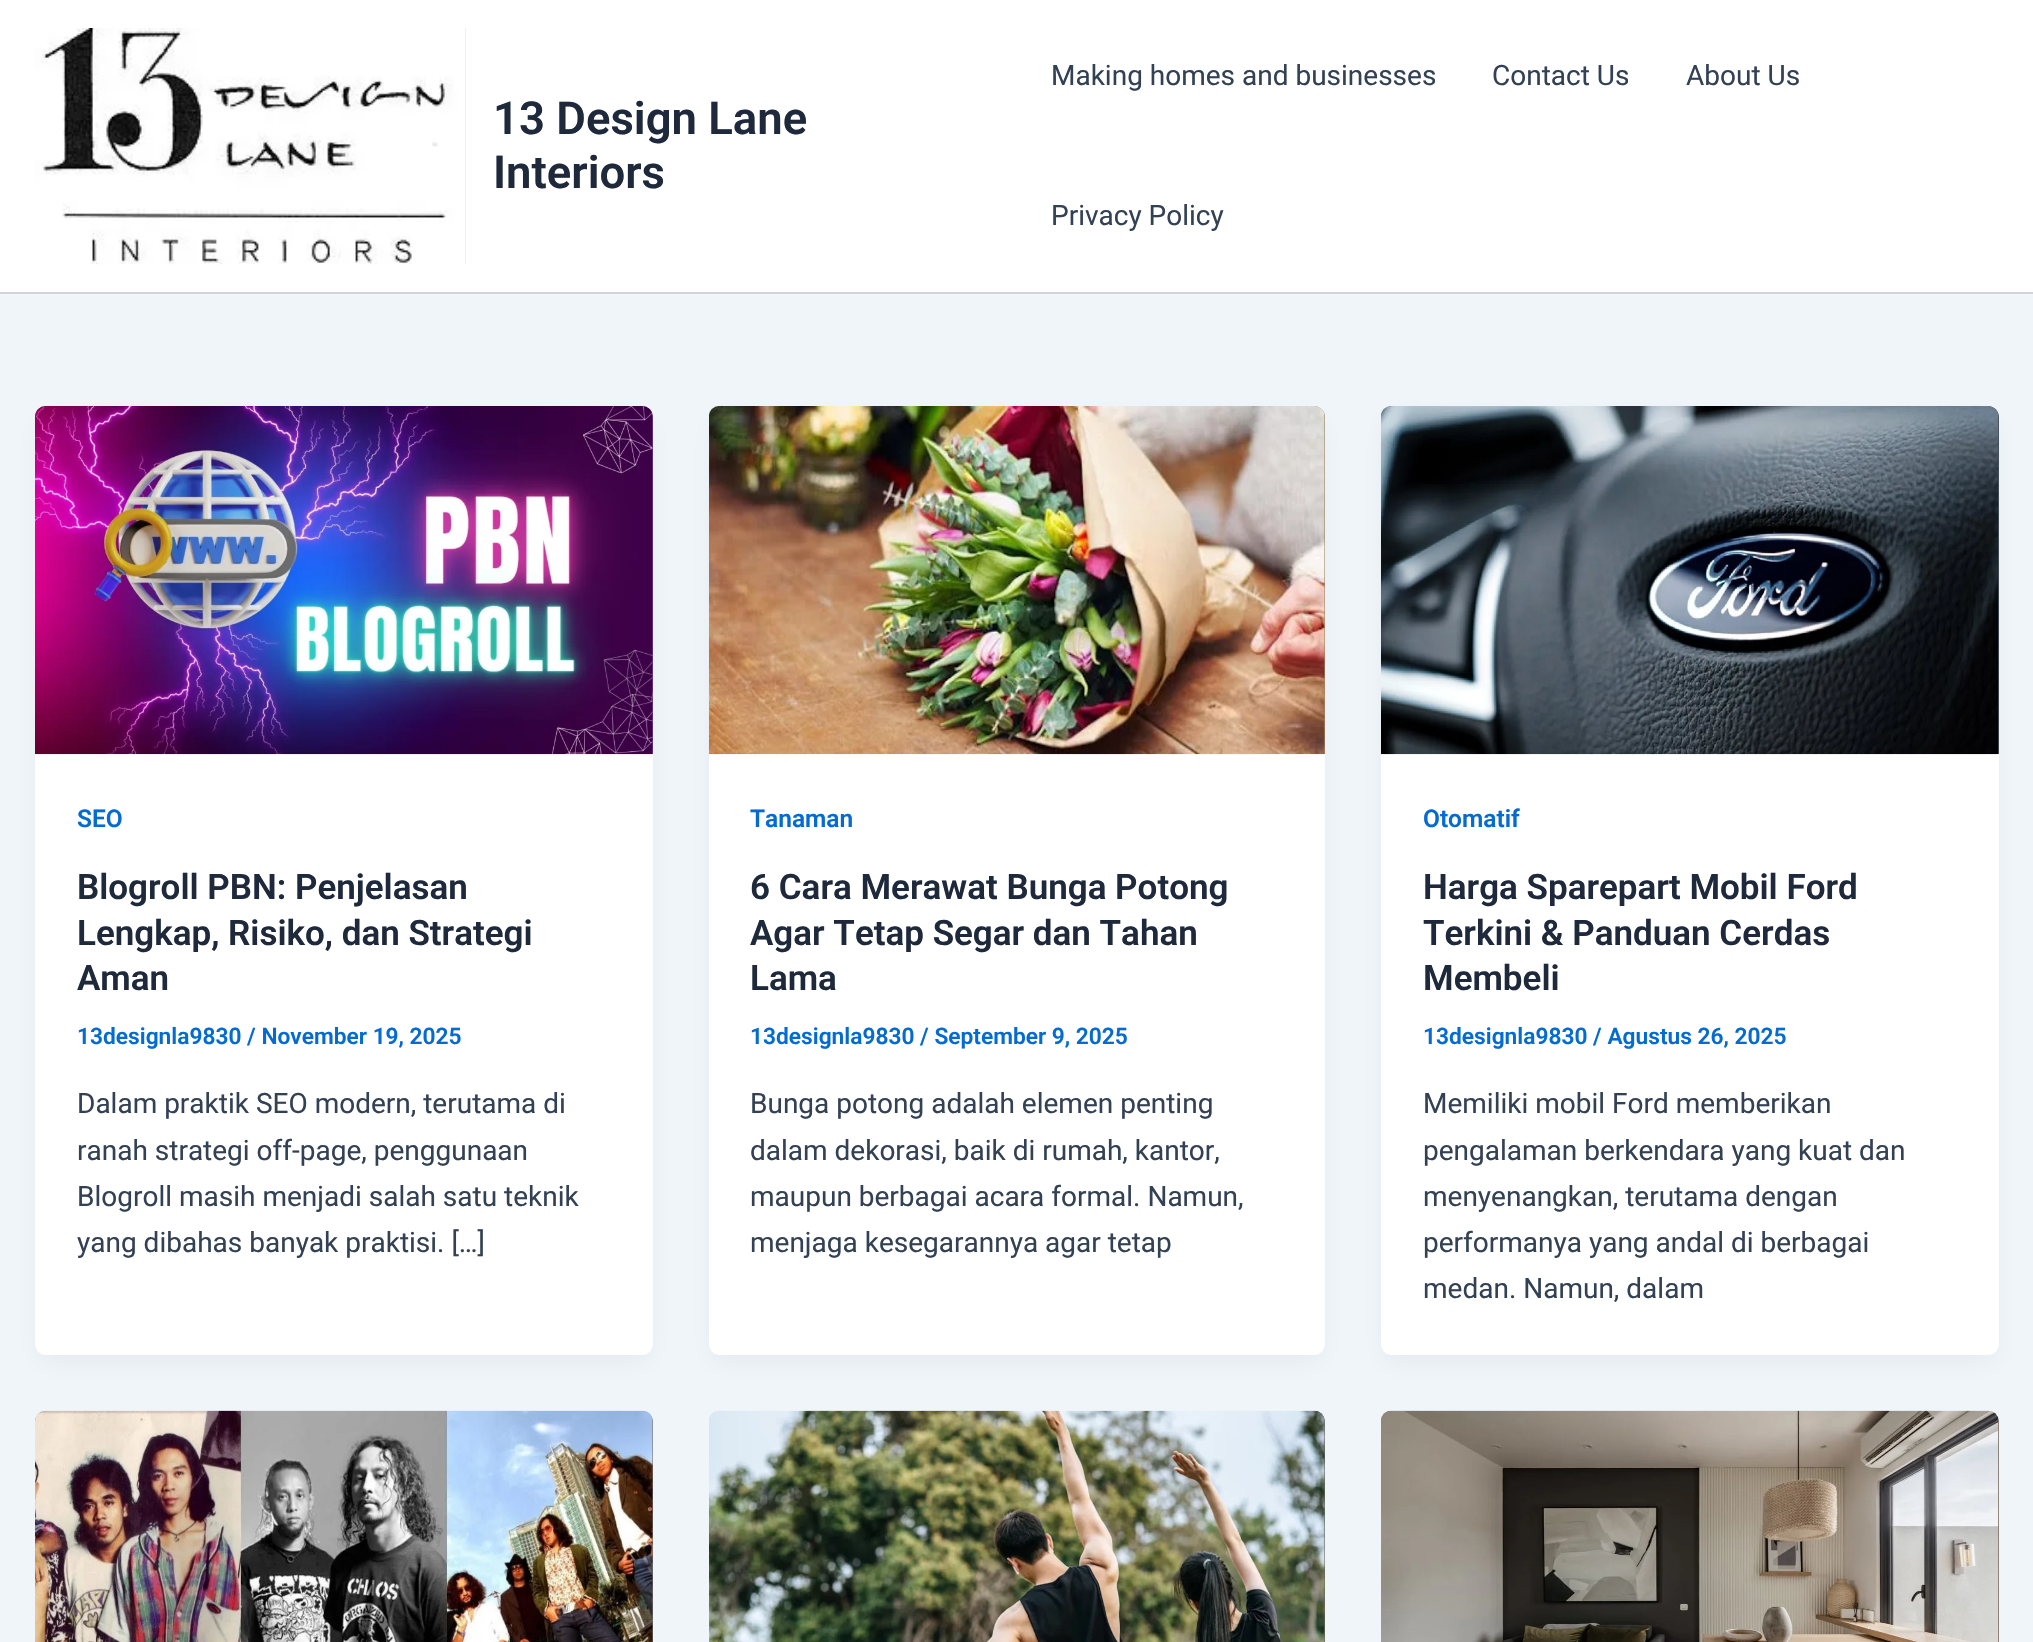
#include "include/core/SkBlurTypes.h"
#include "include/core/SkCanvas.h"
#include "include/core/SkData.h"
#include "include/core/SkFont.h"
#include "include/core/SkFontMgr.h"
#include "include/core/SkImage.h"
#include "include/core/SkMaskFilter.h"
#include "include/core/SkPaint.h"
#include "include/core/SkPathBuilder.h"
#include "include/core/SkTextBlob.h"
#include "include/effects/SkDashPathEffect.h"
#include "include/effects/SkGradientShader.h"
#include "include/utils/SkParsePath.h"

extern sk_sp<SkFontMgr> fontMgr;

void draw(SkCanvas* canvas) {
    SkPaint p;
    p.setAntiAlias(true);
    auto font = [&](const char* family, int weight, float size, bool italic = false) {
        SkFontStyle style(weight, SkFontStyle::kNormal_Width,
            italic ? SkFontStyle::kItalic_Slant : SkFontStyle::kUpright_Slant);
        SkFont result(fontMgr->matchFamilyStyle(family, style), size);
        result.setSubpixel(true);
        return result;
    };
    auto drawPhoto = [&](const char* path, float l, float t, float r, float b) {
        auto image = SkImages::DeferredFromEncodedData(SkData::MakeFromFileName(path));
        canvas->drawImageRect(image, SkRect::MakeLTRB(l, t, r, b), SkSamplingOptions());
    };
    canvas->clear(0xFFF0F5FA);
    {
        const struct { float l, t, r, b; SkColor color; } items[] = {
            {0, 0, 2033, 292, 0xFFFFFFFF},
            {0, 292, 2033, 294, 0xFFD1D5DB},
            {465, 28, 466, 264, 0xFFE2E2E2},
        };
        for (auto [l, t, r, b, color] : items) {
            p.setColor(color);
            canvas->drawRect(SkRect::MakeLTRB(l, t, r, b), p);
        }
    }
    drawPhoto("media/1.png", 35, 28, 466, 265);
    auto font1 = font("Roboto", 600, 45.5f);
    p.setColor(0xFF1E293B);
    canvas->drawString("13 Design Lane", 493, 134, font1, p);
    canvas->drawString("Interiors", 493, 188, font1, p);
    auto font2 = font("Roboto", 400, 28);
    p.setColor(0xFF334155);
    {
        const struct { const char* s; float x, y; } items[] = {
            {"Making homes and businesses", 1051, 85},
            {"Contact Us", 1492, 85},
            {"About Us", 1686, 85},
            {"Privacy Policy", 1051, 225},
        };
        for (auto [s, x, y] : items) {
            canvas->drawString(s, x, y, font2, p);
        }
    }
    p.setColor(0x0D101828);
    p.setMaskFilter(SkMaskFilter::MakeBlur(kNormal_SkBlurStyle, 13));
    canvas->drawRoundRect(SkRect::MakeLTRB(39, 420, 649, 1362), 7, 7, p);
    p.setMaskFilter(nullptr);
    p.setColor(0xFFFFFFFF);
    canvas->drawRoundRect(SkRect::MakeLTRB(35, 406, 653, 1355), 11, 11, p);
    p.setColor(0xFF6C4C91);
    canvas->drawPath(SkPathBuilder().moveTo(46, 406).lineTo(642, 406).cubicTo(648, 406, 653, 411, 653, 417).lineTo(653, 754).lineTo(35, 754).lineTo(35, 417).cubicTo(35, 411, 40, 406, 46, 406).close().detach(), p);
    drawPhoto("media/2.png", 35, 406, 653, 755);
    auto font3 = font("Roboto", 600, 24.5f);
    p.setColor(0xFF046BD2);
    canvas->drawString("SEO", 77, 827, font3, p);
    auto font4 = font("Roboto", 600, 35);
    p.setColor(0xFF1E293B);
    {
        const struct { const char* s; float x, y; } items[] = {
            {"Blogroll PBN: Penjelasan", 77, 899},
            {"Lengkap, Risiko, dan Strategi", 77, 945},
            {"Aman", 77, 990},
        };
        for (auto [s, x, y] : items) {
            canvas->drawString(s, x, y, font4, p);
        }
    }
    auto font5 = font("Roboto", 600, 22.75f);
    p.setColor(0xFF046BD2);
    canvas->drawString("13designla9830 / November 19, 2025", 77, 1044, font5, p);
    p.setColor(0xFF334155);
    {
        const struct { const char* s; float x, y; } items[] = {
            {"Dalam praktik SEO modern, terutama di", 77, 1113},
            {"ranah strategi off-page, penggunaan", 77, 1160},
            {"Blogroll masih menjadi salah satu teknik", 77, 1206},
            {"yang dibahas banyak praktisi. […]", 77, 1252},
        };
        for (auto [s, x, y] : items) {
            canvas->drawString(s, x, y, font2, p);
        }
    }
    p.setColor(0x0D101828);
    p.setMaskFilter(SkMaskFilter::MakeBlur(kNormal_SkBlurStyle, 13));
    canvas->drawRoundRect(SkRect::MakeLTRB(712, 420, 1321, 1362), 7, 7, p);
    p.setMaskFilter(nullptr);
    p.setColor(0xFFFFFFFF);
    canvas->drawRoundRect(SkRect::MakeLTRB(709, 406, 1325, 1355), 11, 11, p);
    p.setColor(0xFF9C8567);
    canvas->drawPath(SkPathBuilder().moveTo(720, 406).lineTo(1314, 406).cubicTo(1320, 406, 1325, 411, 1325, 417).lineTo(1325, 754).lineTo(709, 754).lineTo(709, 417).cubicTo(709, 411, 714, 406, 720, 406).close().detach(), p);
    drawPhoto("media/3.png", 709, 406, 1325, 755);
    p.setColor(0xFF046BD2);
    canvas->drawString("Tanaman", 750, 827, font3, p);
    p.setColor(0xFF1E293B);
    {
        const struct { const char* s; float x, y; } items[] = {
            {"6 Cara Merawat Bunga Potong", 750, 899},
            {"Agar Tetap Segar dan Tahan", 750, 945},
            {"Lama", 750, 990},
        };
        for (auto [s, x, y] : items) {
            canvas->drawString(s, x, y, font4, p);
        }
    }
    p.setColor(0xFF046BD2);
    canvas->drawString("13designla9830 / September 9, 2025", 750, 1044, font5, p);
    p.setColor(0xFF334155);
    {
        const struct { const char* s; float x, y; } items[] = {
            {"Bunga potong adalah elemen penting", 750, 1113},
            {"dalam dekorasi, baik di rumah, kantor,", 750, 1160},
            {"maupun berbagai acara formal. Namun,", 750, 1206},
            {"menjaga kesegarannya agar tetap", 750, 1252},
        };
        for (auto [s, x, y] : items) {
            canvas->drawString(s, x, y, font2, p);
        }
    }
    p.setColor(0x0D101828);
    p.setMaskFilter(SkMaskFilter::MakeBlur(kNormal_SkBlurStyle, 13));
    canvas->drawRoundRect(SkRect::MakeLTRB(1384, 420, 1995, 1362), 7, 7, p);
    p.setMaskFilter(nullptr);
    p.setColor(0xFFFFFFFF);
    canvas->drawRoundRect(SkRect::MakeLTRB(1381, 406, 1999, 1355), 11, 11, p);
    p.setColor(0xFF465059);
    canvas->drawPath(SkPathBuilder().moveTo(1392, 406).lineTo(1988, 406).cubicTo(1994, 406, 1999, 411, 1999, 417).lineTo(1999, 754).lineTo(1381, 754).lineTo(1381, 417).cubicTo(1381, 411, 1386, 406, 1392, 406).close().detach(), p);
    drawPhoto("media/4.png", 1381, 406, 1999, 755);
    p.setColor(0xFF046BD2);
    canvas->drawString("Otomatif", 1423, 827, font3, p);
    p.setColor(0xFF1E293B);
    {
        const struct { const char* s; float x, y; } items[] = {
            {"Harga Sparepart Mobil Ford", 1423, 899},
            {"Terkini & Panduan Cerdas", 1423, 945},
            {"Membeli", 1423, 990},
        };
        for (auto [s, x, y] : items) {
            canvas->drawString(s, x, y, font4, p);
        }
    }
    p.setColor(0xFF046BD2);
    canvas->drawString("13designla9830 / Agustus 26, 2025", 1423, 1044, font5, p);
    p.setColor(0xFF334155);
    {
        const struct { const char* s; float x, y; } items[] = {
            {"Memiliki mobil Ford memberikan", 1423, 1113},
            {"pengalaman berkendara yang kuat dan", 1423, 1160},
            {"menyenangkan, terutama dengan", 1423, 1206},
            {"performanya yang andal di berbagai", 1423, 1252},
            {"medan. Namun, dalam", 1423, 1298},
        };
        for (auto [s, x, y] : items) {
            canvas->drawString(s, x, y, font2, p);
        }
    }
    p.setColor(0xFF786F6E);
    canvas->drawPath(SkPathBuilder().moveTo(46, 1411).lineTo(642, 1411).cubicTo(648, 1411, 653, 1416, 653, 1422).lineTo(653, 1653).lineTo(35, 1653).lineTo(35, 1422).cubicTo(35, 1416, 40, 1411, 46, 1411).close().detach(), p);
    drawPhoto("media/5.png", 35, 1410, 653, 1642);
    p.setColor(0xFF646855);
    canvas->drawPath(SkPathBuilder().moveTo(720, 1411).lineTo(1314, 1411).cubicTo(1320, 1411, 1325, 1416, 1325, 1422).lineTo(1325, 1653).lineTo(709, 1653).lineTo(709, 1422).cubicTo(709, 1416, 714, 1411, 720, 1411).close().detach(), p);
    drawPhoto("media/6.png", 709, 1410, 1325, 1642);
    p.setColor(0xFF81786E);
    canvas->drawPath(SkPathBuilder().moveTo(1392, 1411).lineTo(1988, 1411).cubicTo(1994, 1411, 1999, 1416, 1999, 1422).lineTo(1999, 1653).lineTo(1381, 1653).lineTo(1381, 1422).cubicTo(1381, 1416, 1386, 1411, 1392, 1411).close().detach(), p);
    drawPhoto("media/7.png", 1381, 1410, 1999, 1642);
}
